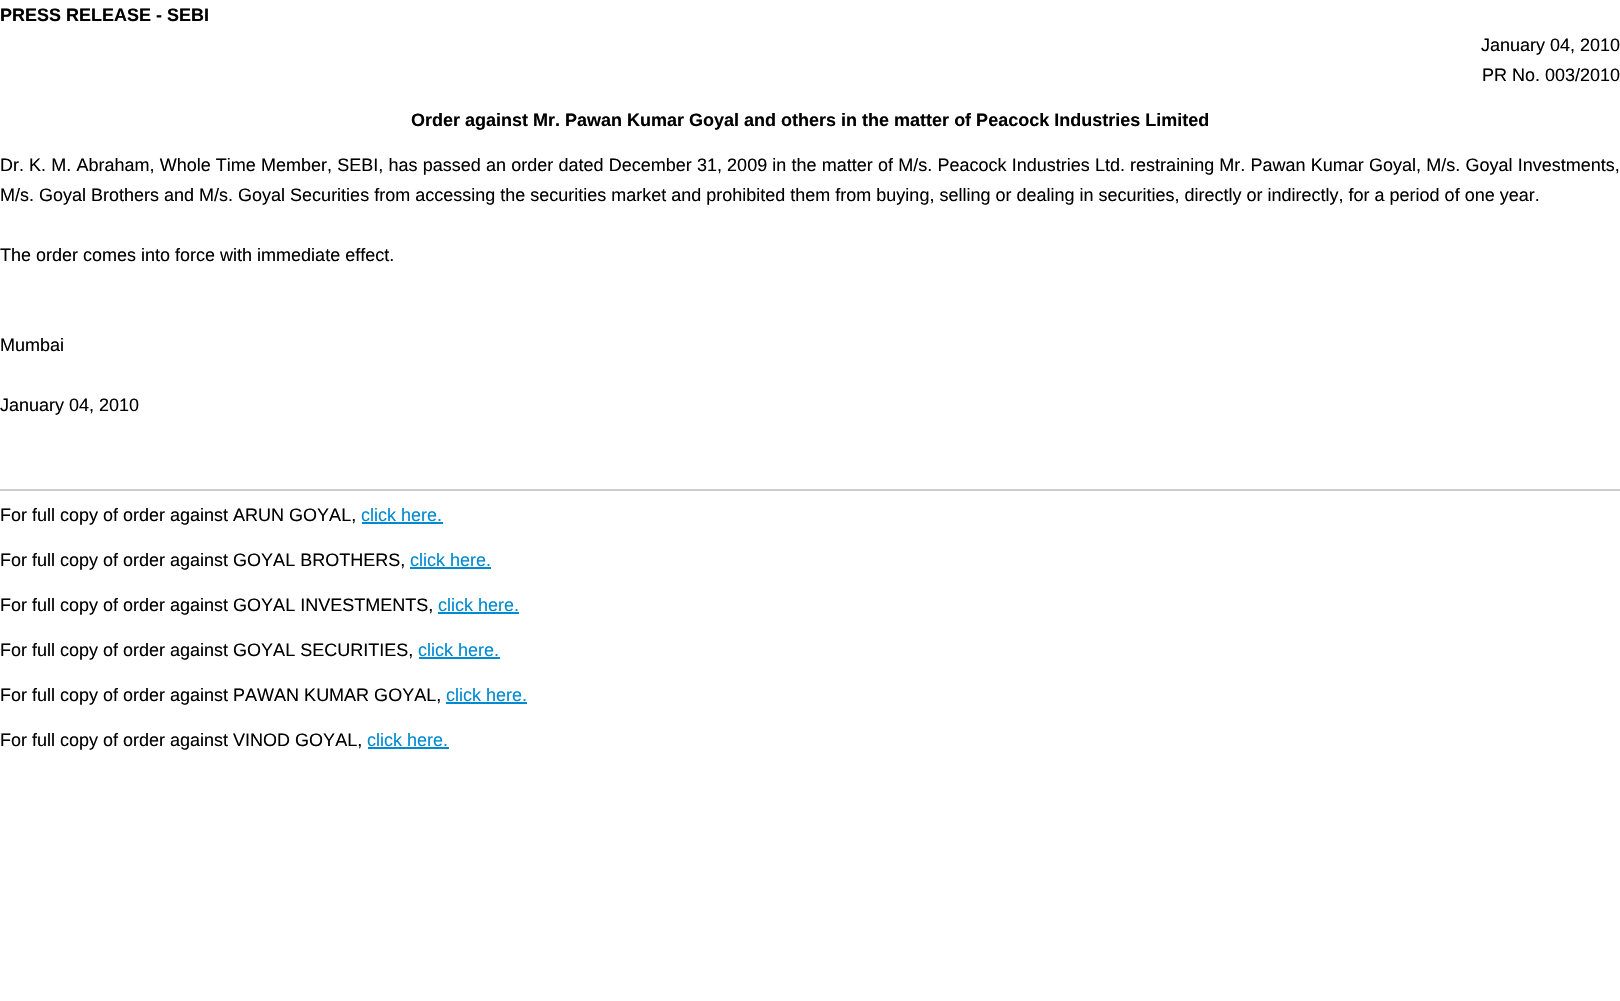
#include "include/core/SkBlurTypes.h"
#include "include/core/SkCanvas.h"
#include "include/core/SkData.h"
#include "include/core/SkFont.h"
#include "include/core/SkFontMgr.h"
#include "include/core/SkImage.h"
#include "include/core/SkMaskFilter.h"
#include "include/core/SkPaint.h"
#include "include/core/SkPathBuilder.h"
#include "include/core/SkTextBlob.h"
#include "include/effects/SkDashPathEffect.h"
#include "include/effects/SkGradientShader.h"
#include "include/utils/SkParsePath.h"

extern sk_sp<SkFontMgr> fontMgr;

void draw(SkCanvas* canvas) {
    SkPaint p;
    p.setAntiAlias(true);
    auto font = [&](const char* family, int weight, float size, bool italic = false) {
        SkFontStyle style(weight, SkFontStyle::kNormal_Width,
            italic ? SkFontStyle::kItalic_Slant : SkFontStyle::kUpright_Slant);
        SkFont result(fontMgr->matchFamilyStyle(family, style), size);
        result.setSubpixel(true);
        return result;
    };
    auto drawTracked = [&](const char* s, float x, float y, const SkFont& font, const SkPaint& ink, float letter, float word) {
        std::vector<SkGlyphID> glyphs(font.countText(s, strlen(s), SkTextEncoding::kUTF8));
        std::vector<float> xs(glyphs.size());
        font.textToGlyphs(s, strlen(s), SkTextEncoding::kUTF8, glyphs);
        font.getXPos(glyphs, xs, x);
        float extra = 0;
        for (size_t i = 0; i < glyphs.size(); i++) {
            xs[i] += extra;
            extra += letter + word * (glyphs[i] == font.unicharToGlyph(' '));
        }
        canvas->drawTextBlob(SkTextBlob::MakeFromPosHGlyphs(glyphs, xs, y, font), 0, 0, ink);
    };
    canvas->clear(0xFFFFFFFF);
    auto font1 = font("Liberation Sans", 700, 18);
    p.setColor(0xFF000000);
    canvas->drawString("PRESS RELEASE - SEBI", 0, 21, font1, p);
    auto font2 = font("Liberation Sans", 400, 18);
    canvas->drawString("January 04, 2010", 1481, 51, font2, p);
    canvas->drawString("PR No. 003/2010", 1482, 81, font2, p);
    canvas->drawString("Order against Mr. Pawan Kumar Goyal and others in the matter of Peacock Industries Limited", 411, 126, font1, p);
    canvas->drawString("Dr.", 0, 171, font2, p);
    drawTracked("K. M. Abraham, Whole Time Member, SEBI, has passed an order dated December 31, 2009 in the matter of M/s. Peacock Industries Ltd. restraining Mr. Pawan Kumar Goyal, M/s. Goyal Investments,", 29, 171, font2, p, 0, 0.2f);
    {
        const struct { const char* s; float x, y; } items[] = {
            {"M/s. Goyal Brothers and M/s. Goyal Securities from accessing the securities market and prohibited them from buying, selling or dealing in securities, directly or indirectly, for a period of one year.", 0, 201},
            {"The order comes into force with immediate effect.", 0, 261},
            {"Mumbai", 0, 351},
            {"January 04, 2010", 0, 411},
        };
        for (auto [s, x, y] : items) {
            canvas->drawString(s, x, y, font2, p);
        }
    }
    p.setColor(0xFFCCCCCC);
    canvas->drawRect(SkRect::MakeLTRB(0, 489, 1620, 491), p);
    p.setColor(0xFF000000);
    canvas->drawString("For full copy of order against ARUN GOYAL,", 0, 521, font2, p);
    p.setColor(0xFF0089D1);
    canvas->drawString("click here.", 361, 521, font2, p);
    canvas->drawRect(SkRect::MakeLTRB(362, 522, 443, 524), p);
    p.setColor(0xFF000000);
    canvas->drawString("For full copy of order against GOYAL BROTHERS,", 0, 566, font2, p);
    p.setColor(0xFF0089D1);
    canvas->drawString("click here.", 410, 566, font2, p);
    canvas->drawRect(SkRect::MakeLTRB(410, 567, 491, 569), p);
    p.setColor(0xFF000000);
    canvas->drawString("For full copy of order against GOYAL INVESTMENTS,", 0, 611, font2, p);
    p.setColor(0xFF0089D1);
    canvas->drawString("click here.", 438, 611, font2, p);
    canvas->drawRect(SkRect::MakeLTRB(438, 612, 519, 614), p);
    p.setColor(0xFF000000);
    canvas->drawString("For full copy of order against GOYAL SECURITIES,", 0, 656, font2, p);
    p.setColor(0xFF0089D1);
    canvas->drawString("click here.", 418, 656, font2, p);
    canvas->drawRect(SkRect::MakeLTRB(419, 657, 500, 659), p);
    p.setColor(0xFF000000);
    canvas->drawString("For full copy of order against PAWAN KUMAR GOYAL,", 0, 701, font2, p);
    p.setColor(0xFF0089D1);
    canvas->drawString("click here.", 446, 701, font2, p);
    canvas->drawRect(SkRect::MakeLTRB(446, 702, 527, 704), p);
    p.setColor(0xFF000000);
    canvas->drawString("For full copy of order against VINOD GOYAL,", 0, 746, font2, p);
    p.setColor(0xFF0089D1);
    canvas->drawString("click here.", 367, 746, font2, p);
    canvas->drawRect(SkRect::MakeLTRB(368, 747, 449, 749), p);
}
